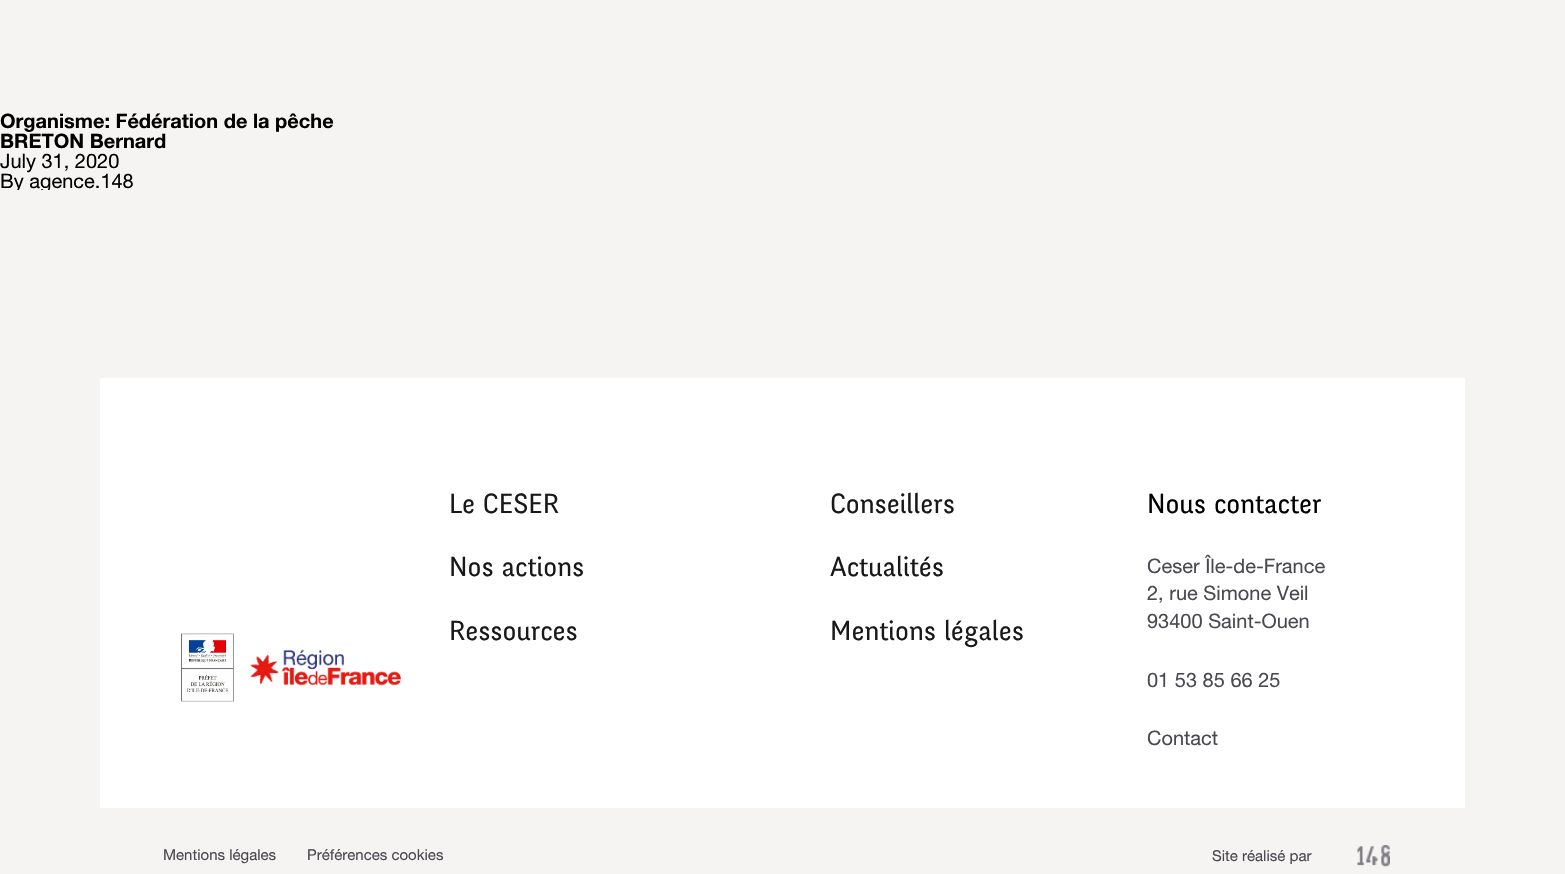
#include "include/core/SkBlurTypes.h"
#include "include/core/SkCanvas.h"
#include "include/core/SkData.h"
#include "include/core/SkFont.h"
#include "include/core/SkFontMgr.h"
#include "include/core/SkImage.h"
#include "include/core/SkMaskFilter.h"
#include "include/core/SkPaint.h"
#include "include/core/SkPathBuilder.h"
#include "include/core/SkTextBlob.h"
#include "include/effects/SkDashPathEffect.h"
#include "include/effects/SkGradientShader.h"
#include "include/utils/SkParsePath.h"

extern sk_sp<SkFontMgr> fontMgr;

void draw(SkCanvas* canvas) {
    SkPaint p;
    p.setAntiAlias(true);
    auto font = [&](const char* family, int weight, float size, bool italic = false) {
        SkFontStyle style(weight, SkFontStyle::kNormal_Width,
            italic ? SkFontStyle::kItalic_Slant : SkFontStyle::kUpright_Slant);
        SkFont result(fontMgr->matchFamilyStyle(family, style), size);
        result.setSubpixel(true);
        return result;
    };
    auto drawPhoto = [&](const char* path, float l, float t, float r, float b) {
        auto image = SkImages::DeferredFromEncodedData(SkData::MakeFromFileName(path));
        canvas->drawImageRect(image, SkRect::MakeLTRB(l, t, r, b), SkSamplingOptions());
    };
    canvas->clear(0xFFF6F4F2);
    auto font1 = font("Helvetica Neue", 700, 20);
    p.setColor(0xFF000000);
    canvas->drawString("Organisme: Fédération de la pêche", 0, 128, font1, p);
    canvas->drawString("BRETON Bernard", 0, 148, font1, p);
    auto font2 = font("Helvetica Neue", 400, 20);
    canvas->drawString("July 31, 2020", 0, 168, font2, p);
    canvas->save();
    canvas->clipRect(SkRect::MakeLTRB(0, 110, 1565, 190));
    canvas->drawString("By agence.148", 0, 188, font2, p);
    canvas->restore();
    p.setColor(0xFFFFFFFF);
    canvas->drawRect(SkRect::MakeLTRB(100, 378, 1465, 808), p);
    drawPhoto("media/1.png", 181, 633, 234, 702);
    drawPhoto("media/2.png", 233, 634, 401, 701);
    auto font3 = font("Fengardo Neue", 400, 27.5f);
    p.setColor(0xFF19181A);
    {
        const struct { const char* s; float x, y; } items[] = {
            {"Le CESER", 449, 513},
            {"Conseillers", 830, 513},
            {"Nos actions", 449, 576},
            {"Actualités", 830, 576},
            {"Ressources", 449, 640},
            {"Mentions légales", 830, 640},
        };
        for (auto [s, x, y] : items) {
            canvas->drawString(s, x, y, font3, p);
        }
    }
    p.setColor(0xFF000000);
    canvas->drawString("Nous contacter", 1147, 513, font3, p);
    p.setColor(0xFF4B4950);
    {
        const struct { const char* s; float x, y; } items[] = {
            {"Ceser Île-de-France", 1147, 573},
            {"2, rue Simone Veil", 1147, 600},
            {"93400 Saint-Ouen", 1147, 628},
            {"01 53 85 66 25", 1147, 687},
            {"Contact", 1147, 745},
        };
        for (auto [s, x, y] : items) {
            canvas->drawString(s, x, y, font2, p);
        }
    }
    auto font4 = font("Helvetica Neue", 400, 15);
    {
        const struct { const char* s; float x, y; } items[] = {
            {"Mentions légales", 163, 860},
            {"Préférences cookies", 307, 860},
            {"Site réalisé par", 1212, 861},
        };
        for (auto [s, x, y] : items) {
            canvas->drawString(s, x, y, font4, p);
        }
    }
    drawPhoto("media/3.png", 1357, 845, 1390, 867);
}
